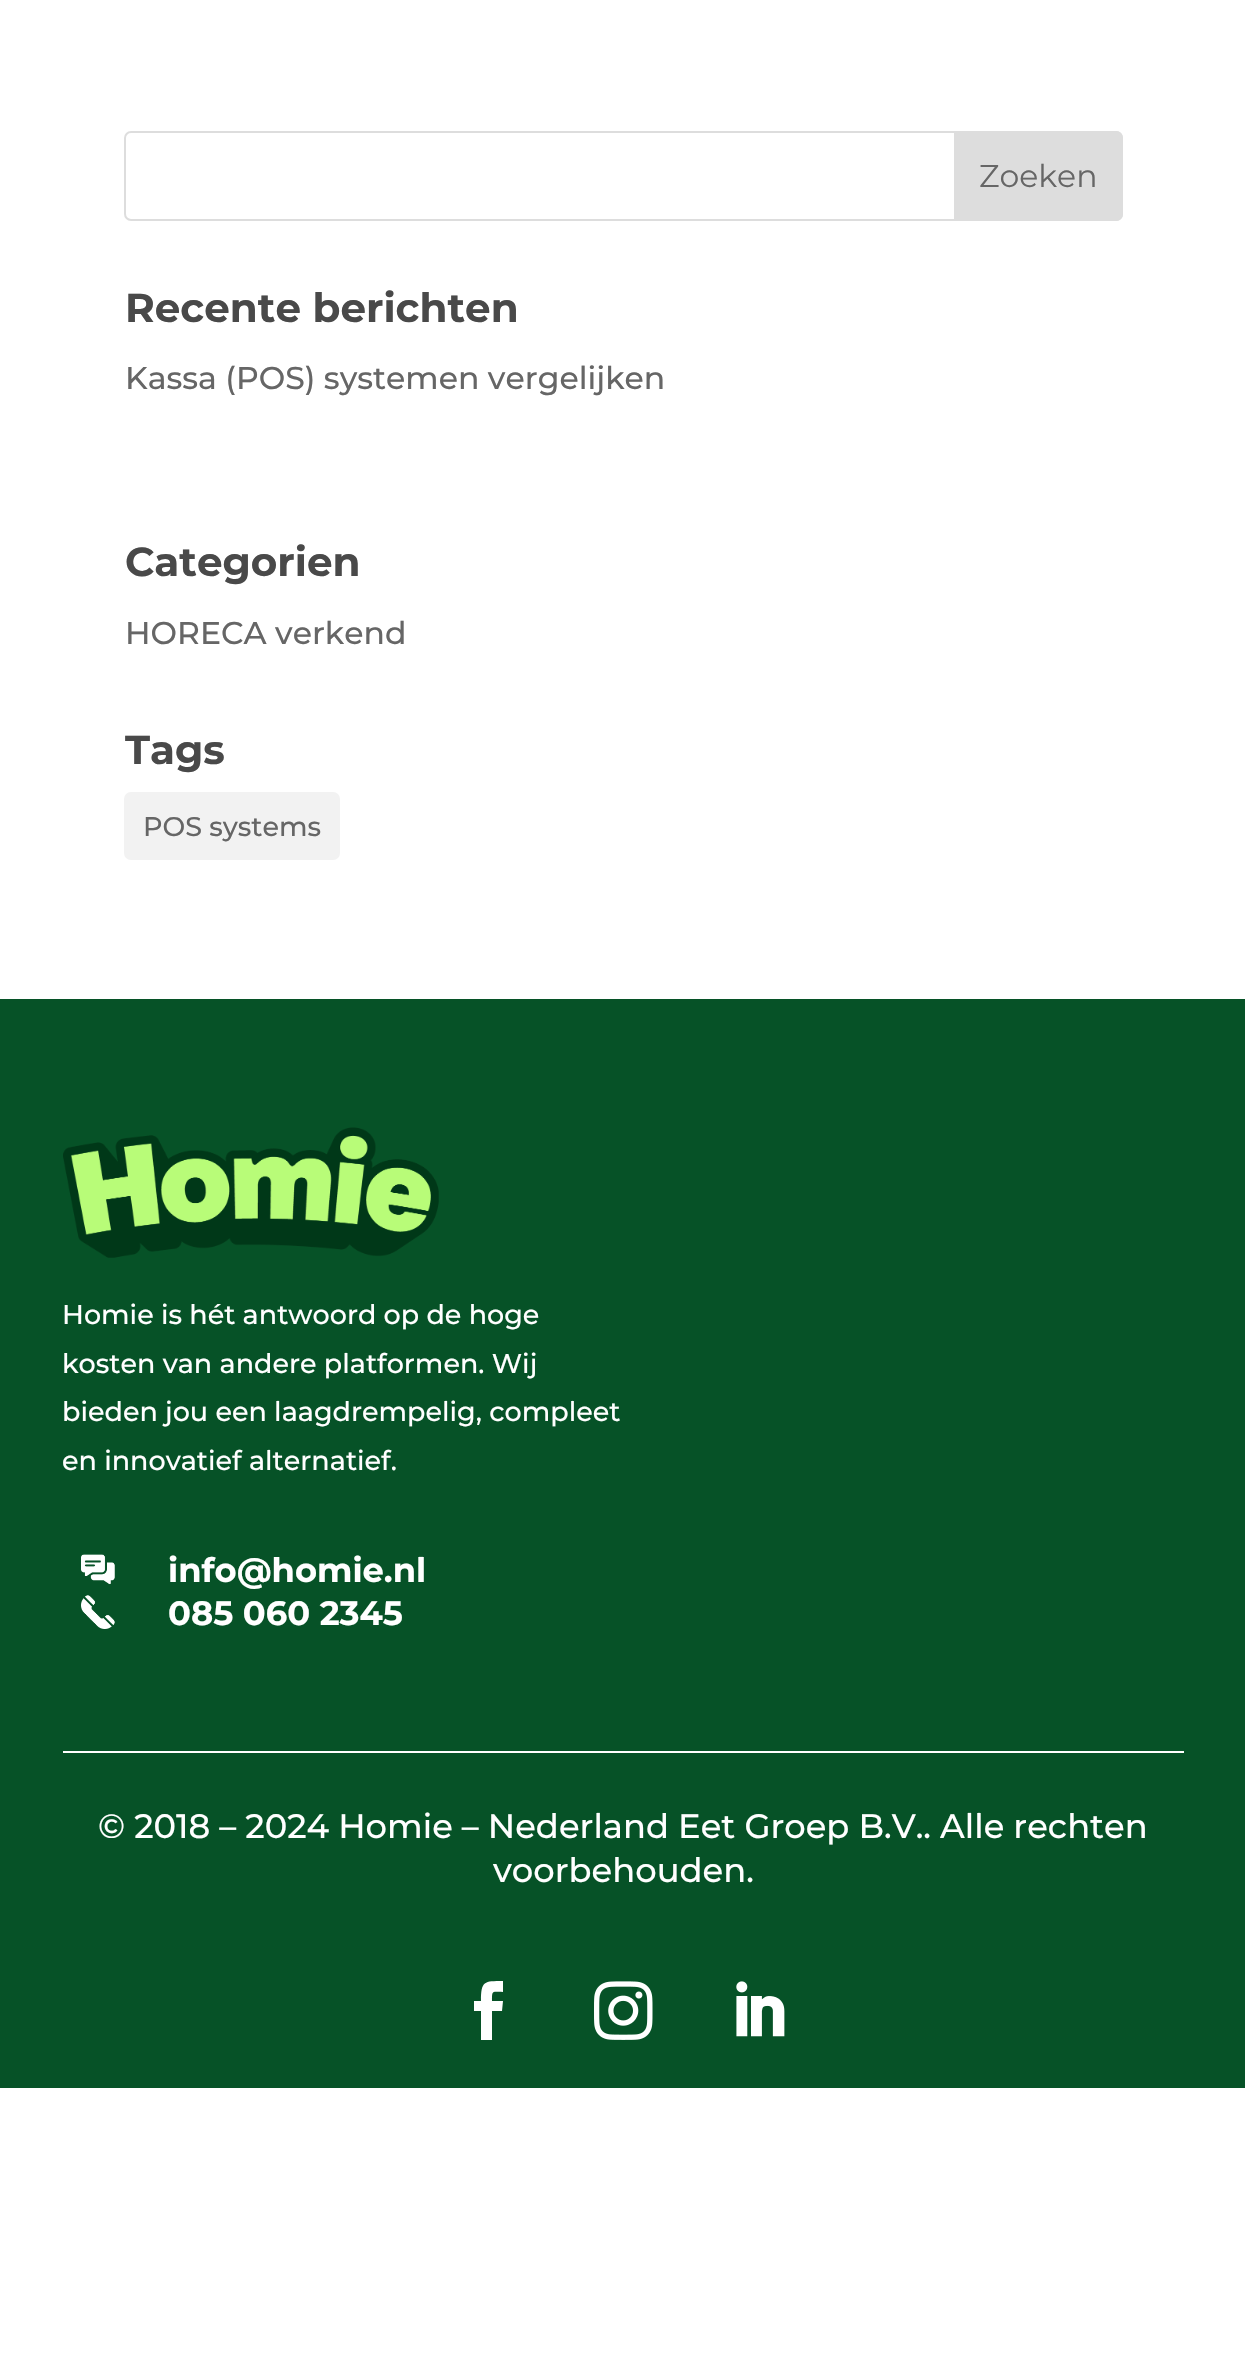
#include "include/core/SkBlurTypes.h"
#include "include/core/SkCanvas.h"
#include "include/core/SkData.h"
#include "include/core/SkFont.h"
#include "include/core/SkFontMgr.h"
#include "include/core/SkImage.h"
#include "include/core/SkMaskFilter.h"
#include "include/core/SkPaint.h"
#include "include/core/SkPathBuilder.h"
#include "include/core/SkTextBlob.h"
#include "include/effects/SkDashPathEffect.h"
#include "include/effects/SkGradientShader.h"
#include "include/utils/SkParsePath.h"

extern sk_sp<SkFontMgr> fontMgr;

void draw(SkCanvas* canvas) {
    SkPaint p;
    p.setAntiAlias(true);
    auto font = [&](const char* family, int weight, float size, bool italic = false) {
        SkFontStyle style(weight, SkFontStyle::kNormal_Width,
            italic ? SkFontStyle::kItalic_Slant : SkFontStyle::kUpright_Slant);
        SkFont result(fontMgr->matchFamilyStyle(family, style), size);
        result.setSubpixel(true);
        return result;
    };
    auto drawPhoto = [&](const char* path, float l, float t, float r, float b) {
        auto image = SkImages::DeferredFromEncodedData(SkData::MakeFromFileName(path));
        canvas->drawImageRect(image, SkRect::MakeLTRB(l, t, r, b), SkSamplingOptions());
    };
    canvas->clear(0xFFFFFFFF);
    p.setStyle(SkPaint::kStroke_Style);
    p.setStrokeWidth(2);
    p.setColor(0xFFDDDDDD);
    canvas->drawRoundRect(SkRect::MakeLTRB(125, 132, 1122, 220), 6, 6, p);
    p.setStyle(SkPaint::kFill_Style);
    canvas->drawPath(SkPathBuilder().moveTo(955, 132).lineTo(1116, 132).cubicTo(1119.5f, 132, 1122, 134.5f, 1122, 138).lineTo(1122, 214).cubicTo(1122, 217.5f, 1119.5f, 220, 1116, 220).lineTo(955, 220).close().detach(), p);
    p.setStyle(SkPaint::kStroke_Style);
    canvas->drawPath(SkPathBuilder().moveTo(955, 132).lineTo(1116, 132).cubicTo(1119.5f, 132, 1122, 134.5f, 1122, 138).lineTo(1122, 214).cubicTo(1122, 217.5f, 1119.5f, 220, 1116, 220).lineTo(955, 220).close().detach(), p);
    auto font1 = font("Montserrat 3", 100, 31.5f);
    p.setStyle(SkPaint::kFill_Style);
    p.setColor(0xFF666666);
    canvas->drawString("Zoeken", 979, 187, font1, p);
    auto font2 = font("Montserrat", 100, 40.5f);
    p.setColor(0xFF494949);
    canvas->drawString("Recente berichten", 125, 322, font2, p);
    auto font3 = font("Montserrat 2", 100, 31.5f);
    p.setColor(0xFF666666);
    canvas->drawString("Kassa (POS) systemen vergelijken", 125, 389, font3, p);
    p.setColor(0xFF494949);
    canvas->drawString("Categorien", 125, 576, font2, p);
    p.setColor(0xFF666666);
    canvas->drawString("HORECA verkend", 125, 644, font3, p);
    p.setColor(0xFF494949);
    canvas->drawString("Tags", 125, 764, font2, p);
    p.setColor(0xFFF2F2F2);
    canvas->drawRoundRect(SkRect::MakeLTRB(124, 792, 340, 860), 7, 7, p);
    auto font4 = font("Montserrat 2", 100, 27);
    p.setColor(0xFF666666);
    canvas->drawString("POS systems", 143, 836, font4, p);
    p.setColor(0xFF065227);
    canvas->drawRect(SkRect::MakeLTRB(0, 999, 1245, 2088), p);
    p.setColor(0xFFFFFFFF);
    canvas->drawRect(SkRect::MakeLTRB(63, 1751, 1184, 1753), p);
    drawPhoto("media/1.png", 63, 1127, 439, 1258);
    {
        const struct { const char* s; float x, y; } items[] = {
            {"Homie is hét antwoord op de hoge", 62, 1324},
            {"kosten van andere platformen. Wij", 62, 1373},
            {"bieden jou een laagdrempelig, compleet", 62, 1421},
            {"en innovatief alternatief.", 62, 1470},
        };
        for (auto [s, x, y] : items) {
            canvas->drawString(s, x, y, font4, p);
        }
    }
    drawPhoto("media/2.png", 81, 1554, 115, 1585);
    auto font5 = font("Montserrat", 100, 33.75f);
    canvas->drawString("info@homie.nl", 168, 1582, font5, p);
    drawPhoto("media/3.png", 81, 1595, 115, 1629);
    canvas->drawString("085 060 2345", 168, 1625, font5, p);
    auto font6 = font("Montserrat 2", 100, 33.75f);
    canvas->drawString("© 2018 – 2024 Homie – Nederland Eet Groep B.V.. Alle rechten", 98, 1838, font6, p);
    canvas->drawString("voorbehouden.", 493, 1882, font6, p);
    canvas->drawPath(SkPathBuilder().moveTo(481, 2040).lineTo(492, 2040).lineTo(492, 2011).lineTo(502, 2011).lineTo(503, 2001).lineTo(492, 2001).cubicTo(492, 1990, 492, 1992, 503, 1992).lineTo(503, 1981).cubicTo(484, 1981, 481, 1981, 481, 2001).lineTo(474, 2001).lineTo(474, 2011).lineTo(481, 2011).close().detach(), p);
    drawPhoto("media/4.png", 594, 1981, 653, 2040);
    drawPhoto("media/5.png", 736, 1981, 785, 2037);
}
